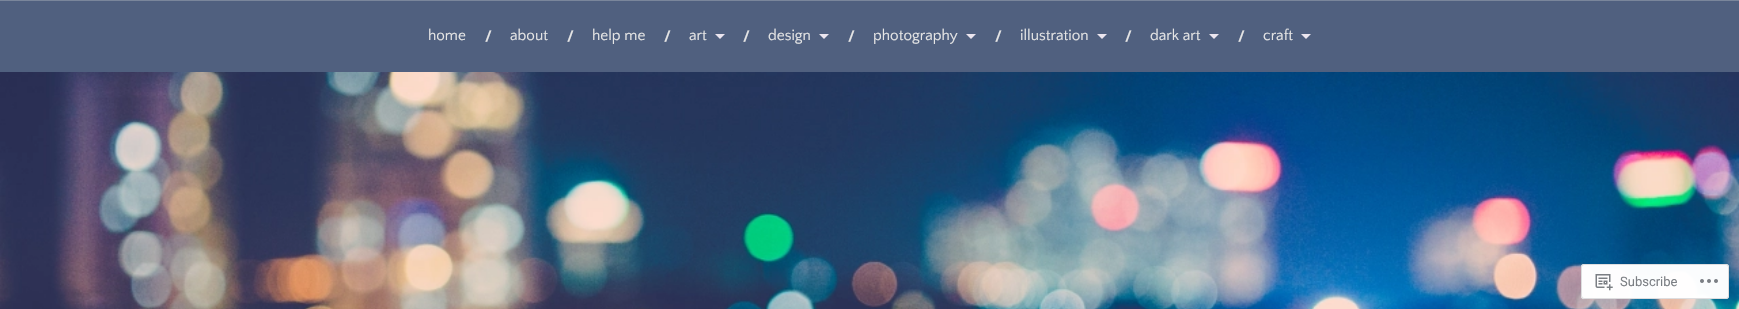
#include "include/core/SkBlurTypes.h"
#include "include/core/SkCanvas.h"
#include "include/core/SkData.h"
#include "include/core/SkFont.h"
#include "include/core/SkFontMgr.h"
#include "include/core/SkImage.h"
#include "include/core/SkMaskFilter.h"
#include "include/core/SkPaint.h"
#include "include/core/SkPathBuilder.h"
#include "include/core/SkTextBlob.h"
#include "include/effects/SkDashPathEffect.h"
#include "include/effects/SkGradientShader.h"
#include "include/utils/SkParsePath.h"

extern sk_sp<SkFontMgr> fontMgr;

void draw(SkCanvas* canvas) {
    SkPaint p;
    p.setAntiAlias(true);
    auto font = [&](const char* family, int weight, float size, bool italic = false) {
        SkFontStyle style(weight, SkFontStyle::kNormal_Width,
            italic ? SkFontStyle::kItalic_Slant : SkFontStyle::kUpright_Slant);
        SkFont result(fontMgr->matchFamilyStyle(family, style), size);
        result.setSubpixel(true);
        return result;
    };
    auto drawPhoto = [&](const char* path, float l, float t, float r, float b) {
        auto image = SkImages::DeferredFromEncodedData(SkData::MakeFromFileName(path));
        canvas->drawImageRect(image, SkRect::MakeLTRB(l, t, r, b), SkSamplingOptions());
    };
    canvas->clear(0xFF50607F);
    p.setColor(0xFF7A869B);
    canvas->drawRect(SkRect::MakeLTRB(0, 0, 1739, 1), p);
    auto font1 = font("Quattrocento Sans", 400, 15.25f);
    p.setColor(0xFFE5E5E5);
    canvas->drawString("home", 428, 40, font1, p);
    auto font2 = font("Quattrocento Sans", 700, 15);
    canvas->drawString("/", 485, 41, font2, p);
    canvas->drawString("about", 510, 40, font1, p);
    canvas->drawString("/", 567, 41, font2, p);
    canvas->drawString("help me", 592, 40, font1, p);
    canvas->drawString("/", 664, 41, font2, p);
    canvas->drawString("art", 689, 40, font1, p);
    p.setColor(0xFFEBE5EF);
    canvas->drawPath(SkPathBuilder().moveTo(715, 34).lineTo(725, 34).lineTo(720, 39).close().detach(), p);
    p.setColor(0xFFE5E5E5);
    canvas->drawString("/", 743, 41, font2, p);
    canvas->drawString("design", 768, 40, font1, p);
    p.setColor(0xFFEBE5EF);
    canvas->drawPath(SkPathBuilder().moveTo(819, 34).lineTo(829, 34).lineTo(824, 39).close().detach(), p);
    p.setColor(0xFFE5E5E5);
    canvas->drawString("/", 848, 41, font2, p);
    canvas->drawString("photography", 873, 40, font1, p);
    p.setColor(0xFFEBE5EF);
    canvas->drawPath(SkPathBuilder().moveTo(966, 34).lineTo(976, 34).lineTo(971, 39).close().detach(), p);
    p.setColor(0xFFE5E5E5);
    canvas->drawString("/", 995, 41, font2, p);
    canvas->drawString("illustration", 1020, 40, font1, p);
    p.setColor(0xFFEBE5EF);
    canvas->drawPath(SkPathBuilder().moveTo(1097, 34).lineTo(1107, 34).lineTo(1102, 39).close().detach(), p);
    p.setColor(0xFFE5E5E5);
    canvas->drawString("/", 1125, 41, font2, p);
    canvas->drawString("dark art", 1150, 40, font1, p);
    p.setColor(0xFFEBE5EF);
    canvas->drawPath(SkPathBuilder().moveTo(1209, 34).lineTo(1219, 34).lineTo(1214, 39).close().detach(), p);
    p.setColor(0xFFE5E5E5);
    canvas->drawString("/", 1238, 41, font2, p);
    canvas->drawString("craft", 1263, 40, font1, p);
    p.setColor(0xFFEBE5EF);
    canvas->drawPath(SkPathBuilder().moveTo(1301, 34).lineTo(1311, 34).lineTo(1306, 39).close().detach(), p);
    drawPhoto("media/1.png", 0, 72, 1739, 309);
    p.setColor(0xFAFFFFFF);
    canvas->drawRoundRect(SkRect::MakeLTRB(1581, 264, 1729, 299), 3, 3, p);
    p.setStyle(SkPaint::kStroke_Style);
    p.setStrokeWidth(1);
    p.setColor(0xFADCDCDE);
    canvas->drawRoundRect(SkRect::MakeLTRB(1581.5f, 264.5f, 1728.5f, 298.5f), 2.5f, 2.5f, p);
    drawPhoto("media/2.png", 1595, 274, 1613, 291);
    auto font3 = font("Roboto", 400, 13);
    p.setStyle(SkPaint::kFill_Style);
    p.setColor(0xFF7B7F84);
    canvas->drawString("Subscribe", 1620, 286, font3, p);
    drawPhoto("media/3.png", 1700, 279, 1718, 283);
}
